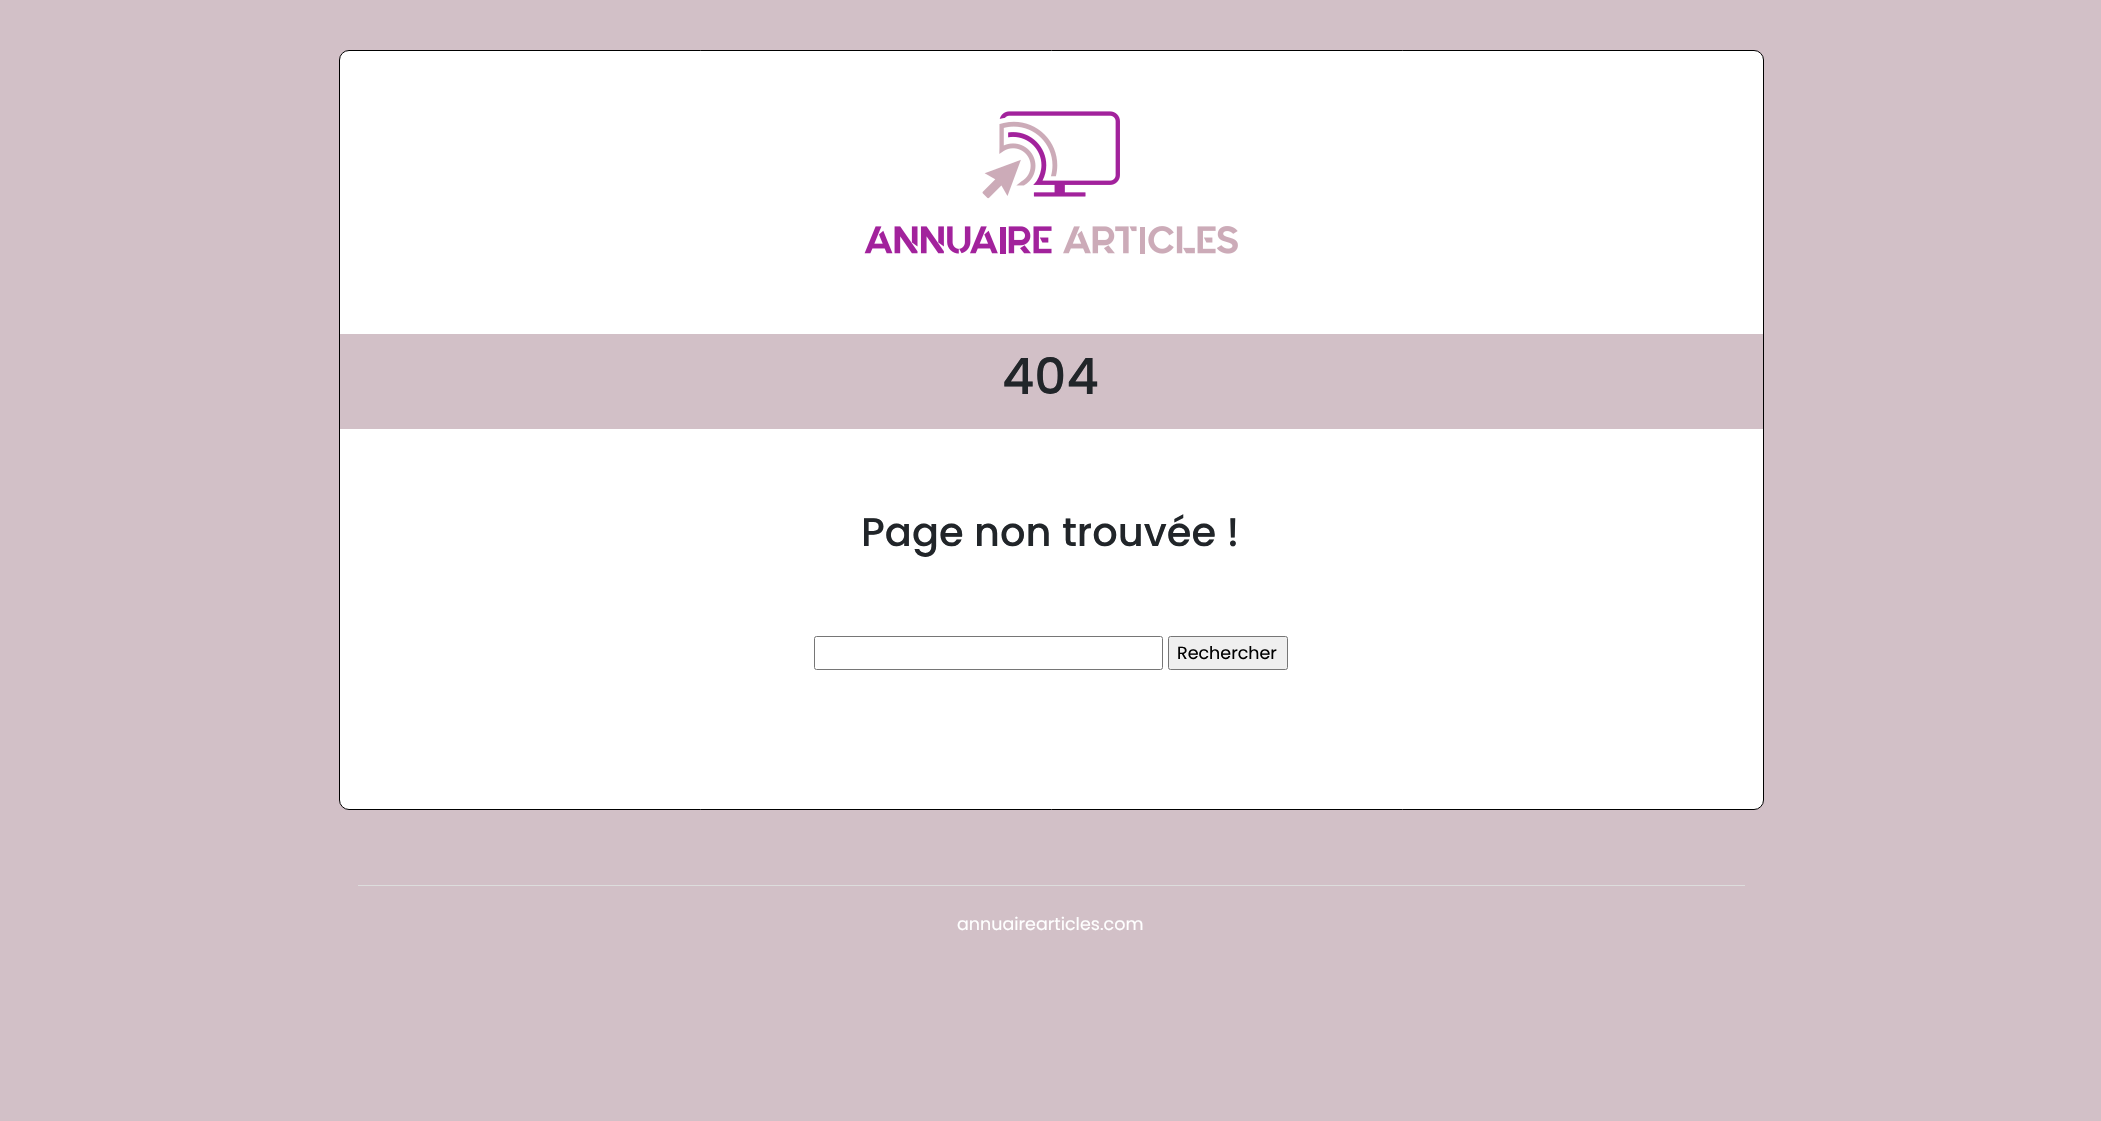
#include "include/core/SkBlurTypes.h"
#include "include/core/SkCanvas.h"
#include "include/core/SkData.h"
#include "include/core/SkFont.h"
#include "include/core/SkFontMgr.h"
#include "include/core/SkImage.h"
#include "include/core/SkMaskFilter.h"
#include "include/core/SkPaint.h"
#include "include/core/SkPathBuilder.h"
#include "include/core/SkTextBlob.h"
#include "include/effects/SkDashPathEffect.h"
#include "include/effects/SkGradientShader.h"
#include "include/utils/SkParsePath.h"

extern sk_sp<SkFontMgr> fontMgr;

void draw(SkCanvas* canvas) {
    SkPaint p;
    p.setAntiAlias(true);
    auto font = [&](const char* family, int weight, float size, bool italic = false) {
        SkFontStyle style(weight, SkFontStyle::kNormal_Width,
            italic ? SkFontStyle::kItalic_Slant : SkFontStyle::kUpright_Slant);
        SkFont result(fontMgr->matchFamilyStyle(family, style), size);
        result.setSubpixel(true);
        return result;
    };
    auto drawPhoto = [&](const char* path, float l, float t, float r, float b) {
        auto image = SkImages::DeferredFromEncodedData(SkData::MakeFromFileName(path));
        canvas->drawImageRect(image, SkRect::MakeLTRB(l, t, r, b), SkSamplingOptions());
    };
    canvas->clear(0xFFD2C0C7);
    p.setColor(0xFFFFFFFF);
    canvas->drawRoundRect(SkRect::MakeLTRB(339.5f, 50.5f, 1763.5f, 809.5f), 9.5f, 9.5f, p);
    p.setStyle(SkPaint::kStroke_Style);
    p.setStrokeWidth(1);
    p.setColor(0xFF000000);
    canvas->drawRoundRect(SkRect::MakeLTRB(339.5f, 50.5f, 1763.5f, 809.5f), 9.5f, 9.5f, p);
    drawPhoto("media/1.png", 864, 111, 1238, 254);
    p.setStyle(SkPaint::kFill_Style);
    p.setColor(0xFFD2C0C7);
    canvas->drawRect(SkRect::MakeLTRB(340, 334, 1763, 429), p);
    auto font1 = font("Poppins", 500, 50);
    p.setColor(0xFF212529);
    canvas->drawString("404", 1002, 394, font1, p);
    auto font2 = font("Poppins", 500, 40);
    canvas->drawString("Page non trouvée !", 861, 546, font2, p);
    p.setStyle(SkPaint::kStroke_Style);
    p.setColor(0xFF767676);
    canvas->drawRoundRect(SkRect::MakeLTRB(814.5f, 636.5f, 1162.5f, 669.5f), 2, 2, p);
    p.setStyle(SkPaint::kFill_Style);
    p.setColor(0xFFEFEFEF);
    canvas->drawRoundRect(SkRect::MakeLTRB(1168.5f, 636.5f, 1287.5f, 669.5f), 2, 2, p);
    p.setStyle(SkPaint::kStroke_Style);
    p.setColor(0xFF767676);
    canvas->drawRoundRect(SkRect::MakeLTRB(1168.5f, 636.5f, 1287.5f, 669.5f), 2, 2, p);
    auto font3 = font("Poppins", 400, 17.5f);
    p.setStyle(SkPaint::kFill_Style);
    p.setColor(0xFF000000);
    canvas->drawString("Rechercher", 1177, 659, font3, p);
    p.setColor(0xFFDDDDDD);
    canvas->drawRect(SkRect::MakeLTRB(358, 885, 1745, 886), p);
    p.setColor(0xFFFFFFFF);
    canvas->drawString("annuairearticles.com", 957, 930, font3, p);
}
